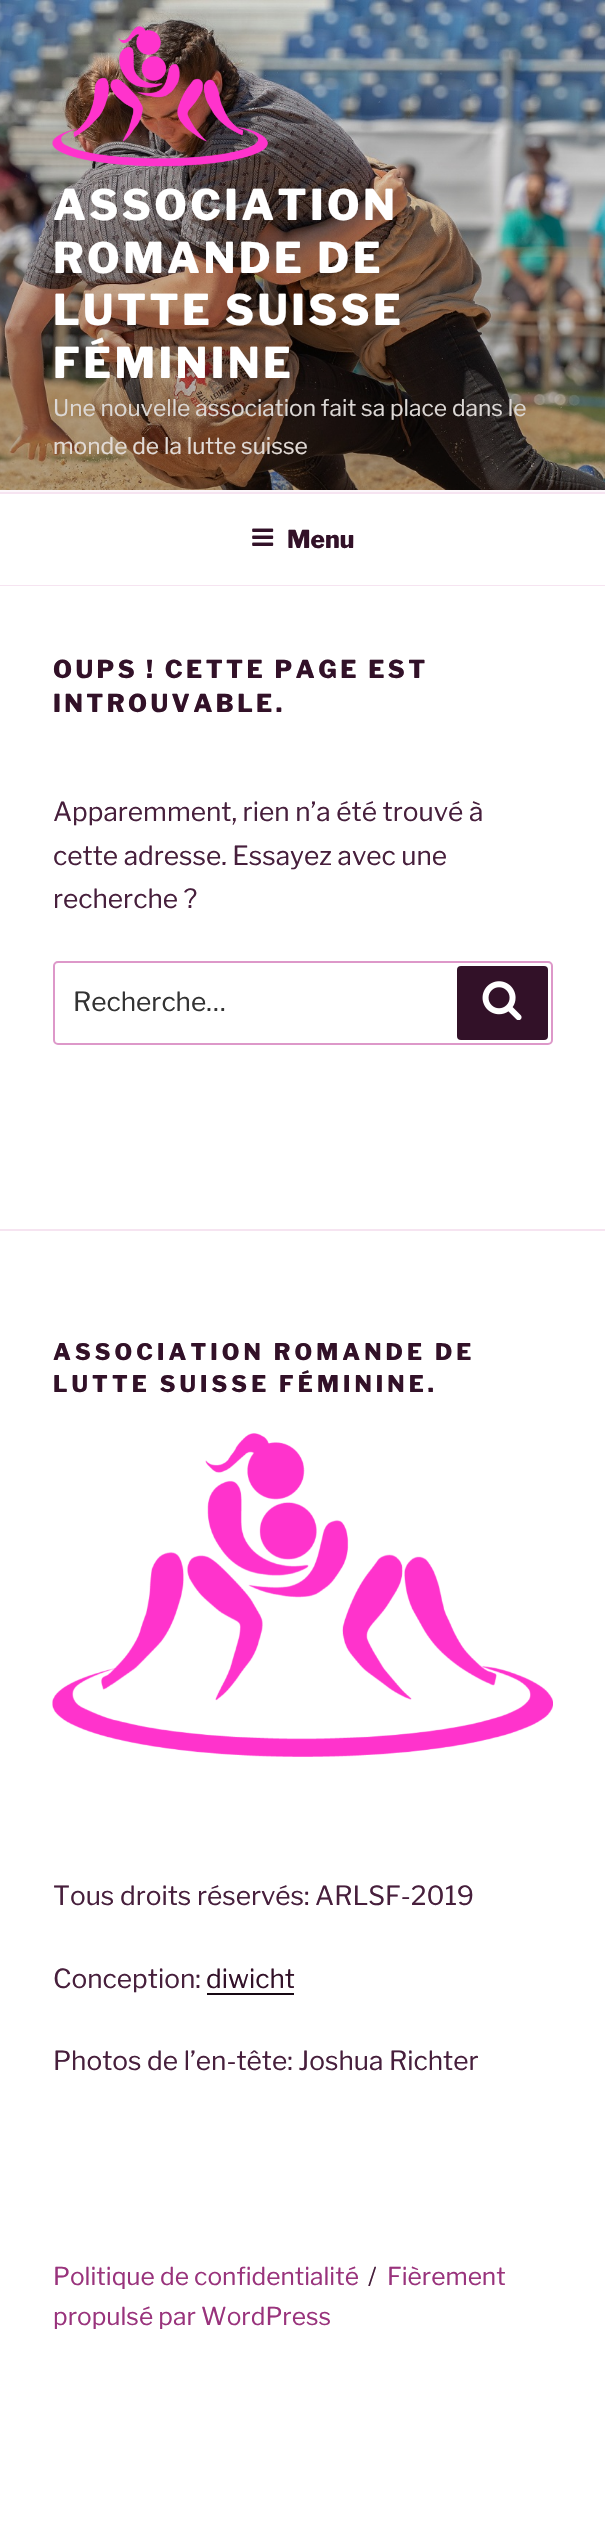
#include "include/core/SkBlurTypes.h"
#include "include/core/SkCanvas.h"
#include "include/core/SkData.h"
#include "include/core/SkFont.h"
#include "include/core/SkFontMgr.h"
#include "include/core/SkImage.h"
#include "include/core/SkMaskFilter.h"
#include "include/core/SkPaint.h"
#include "include/core/SkPathBuilder.h"
#include "include/core/SkTextBlob.h"
#include "include/effects/SkDashPathEffect.h"
#include "include/effects/SkGradientShader.h"
#include "include/utils/SkParsePath.h"

extern sk_sp<SkFontMgr> fontMgr;

void draw(SkCanvas* canvas) {
    SkPaint p;
    p.setAntiAlias(true);
    auto font = [&](const char* family, int weight, float size, bool italic = false) {
        SkFontStyle style(weight, SkFontStyle::kNormal_Width,
            italic ? SkFontStyle::kItalic_Slant : SkFontStyle::kUpright_Slant);
        SkFont result(fontMgr->matchFamilyStyle(family, style), size);
        result.setSubpixel(true);
        return result;
    };
    auto drawTracked = [&](const char* s, float x, float y, const SkFont& font, const SkPaint& ink, float letter, float word) {
        std::vector<SkGlyphID> glyphs(font.countText(s, strlen(s), SkTextEncoding::kUTF8));
        std::vector<float> xs(glyphs.size());
        font.textToGlyphs(s, strlen(s), SkTextEncoding::kUTF8, glyphs);
        font.getXPos(glyphs, xs, x);
        float extra = 0;
        for (size_t i = 0; i < glyphs.size(); i++) {
            xs[i] += extra;
            extra += letter + word * (glyphs[i] == font.unicharToGlyph(' '));
        }
        canvas->drawTextBlob(SkTextBlob::MakeFromPosHGlyphs(glyphs, xs, y, font), 0, 0, ink);
    };
    auto drawPhoto = [&](const char* path, float l, float t, float r, float b) {
        auto image = SkImages::DeferredFromEncodedData(SkData::MakeFromFileName(path));
        canvas->drawImageRect(image, SkRect::MakeLTRB(l, t, r, b), SkSamplingOptions());
    };
    canvas->clear(0xFFFFFFFF);
    p.setColor(0xFFFCF7FB);
    canvas->drawRect(SkRect::MakeLTRB(0, 490, 605, 492), p);
    drawPhoto("media/1.png", 0, 0, 605, 490);
    drawPhoto("media/2.png", 52, 26, 268, 167);
    auto font1 = font("Libre Franklin", 100, 42);
    p.setColor(0xFFFFFFFF);
    {
        const struct { const char* s; float x, y; } items[] = {
            {"ASSOCIATION", 53, 220},
            {"ROMANDE DE", 53, 273},
            {"LUTTE SUISSE", 53, 325},
            {"FÉMININE", 53, 378},
        };
        for (auto [s, x, y] : items) {
            drawTracked(s, x, y, font1, p, 3.4f, 0);
        }
    }
    auto font2 = font("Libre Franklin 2", 100, 22.75f);
    p.setColor(0xFFDCD8D5);
    canvas->drawString("Une nouvelle association fait sa place dans le", 53, 416, font2, p);
    p.setColor(0xFFE2DBD6);
    canvas->drawString("monde de la lutte suisse", 53, 454, font2, p);
    p.setColor(0xFFF6E4F1);
    canvas->drawRect(SkRect::MakeLTRB(0, 492, 605, 494), p);
    canvas->drawRect(SkRect::MakeLTRB(0, 585, 605, 586), p);
    drawPhoto("media/3.png", 252, 528, 274, 546);
    auto font3 = font("Libre Franklin", 100, 24.5f);
    p.setColor(0xFF321128);
    canvas->drawString("Menu", 287, 548, font3, p);
    drawTracked("OUPS ! CETTE PAGE EST", 53, 678, font3, p, 3.4f, 0);
    drawTracked("INTROUVABLE.", 53, 712, font3, p, 3.4f, 0);
    auto font4 = font("Libre Franklin 2", 100, 26.25f);
    p.setColor(0xFF471F3C);
    {
        const struct { const char* s; float x, y; } items[] = {
            {"Apparemment, rien n’a été trouvé à", 53, 821},
            {"cette adresse. Essayez avec une", 53, 865},
            {"recherche ?", 53, 908},
        };
        for (auto [s, x, y] : items) {
            canvas->drawString(s, x, y, font4, p);
        }
    }
    p.setStyle(SkPaint::kStroke_Style);
    p.setStrokeWidth(2);
    p.setColor(0xFFDD98C9);
    canvas->drawRoundRect(SkRect::MakeLTRB(54, 962, 552, 1044), 4, 4, p);
    p.setStyle(SkPaint::kFill_Style);
    p.setColor(0xFF333333);
    canvas->drawString("Recherche…", 73, 1011, font4, p);
    p.setColor(0xFF321128);
    canvas->drawRoundRect(SkRect::MakeLTRB(457, 966, 548, 1040), 4, 4, p);
    drawPhoto("media/4.png", 482, 981, 522, 1020);
    p.setColor(0xFFF6E4F1);
    canvas->drawRect(SkRect::MakeLTRB(0, 1229, 605, 1231), p);
    auto font5 = font("Libre Franklin", 100, 22.75f);
    p.setColor(0xFF321128);
    drawTracked("ASSOCIATION ROMANDE DE", 53, 1360, font5, p, 4.1f, 0);
    drawTracked("LUTTE SUISSE FÉMININE.", 53, 1392, font5, p, 4.1f, 0);
    drawPhoto("media/5.png", 52, 1433, 553, 1757);
    p.setColor(0xFF471F3C);
    canvas->drawString("Tous droits réservés: ARLSF-2019", 53, 1905, font4, p);
    canvas->drawString("Conception:", 53, 1988, font4, p);
    p.setColor(0xFF321128);
    canvas->drawString("diwicht", 206, 1988, font4, p);
    p.setColor(0xFF170813);
    canvas->drawRect(SkRect::MakeLTRB(207, 1993, 294, 1995), p);
    p.setColor(0xFF471F3C);
    canvas->drawString("Photos de l’en-tête: Joshua Richter", 53, 2070, font4, p);
    auto font6 = font("Libre Franklin 2", 100, 24.5f);
    p.setColor(0xFF99337C);
    canvas->drawString("Politique de confidentialité", 53, 2285, font6, p);
    p.setColor(0xFF471F3C);
    canvas->drawString("/", 368, 2285, font6, p);
    p.setColor(0xFF99337C);
    canvas->drawString("Fièrement", 387, 2285, font6, p);
    canvas->drawString("propulsé par WordPress", 53, 2325, font6, p);
}
